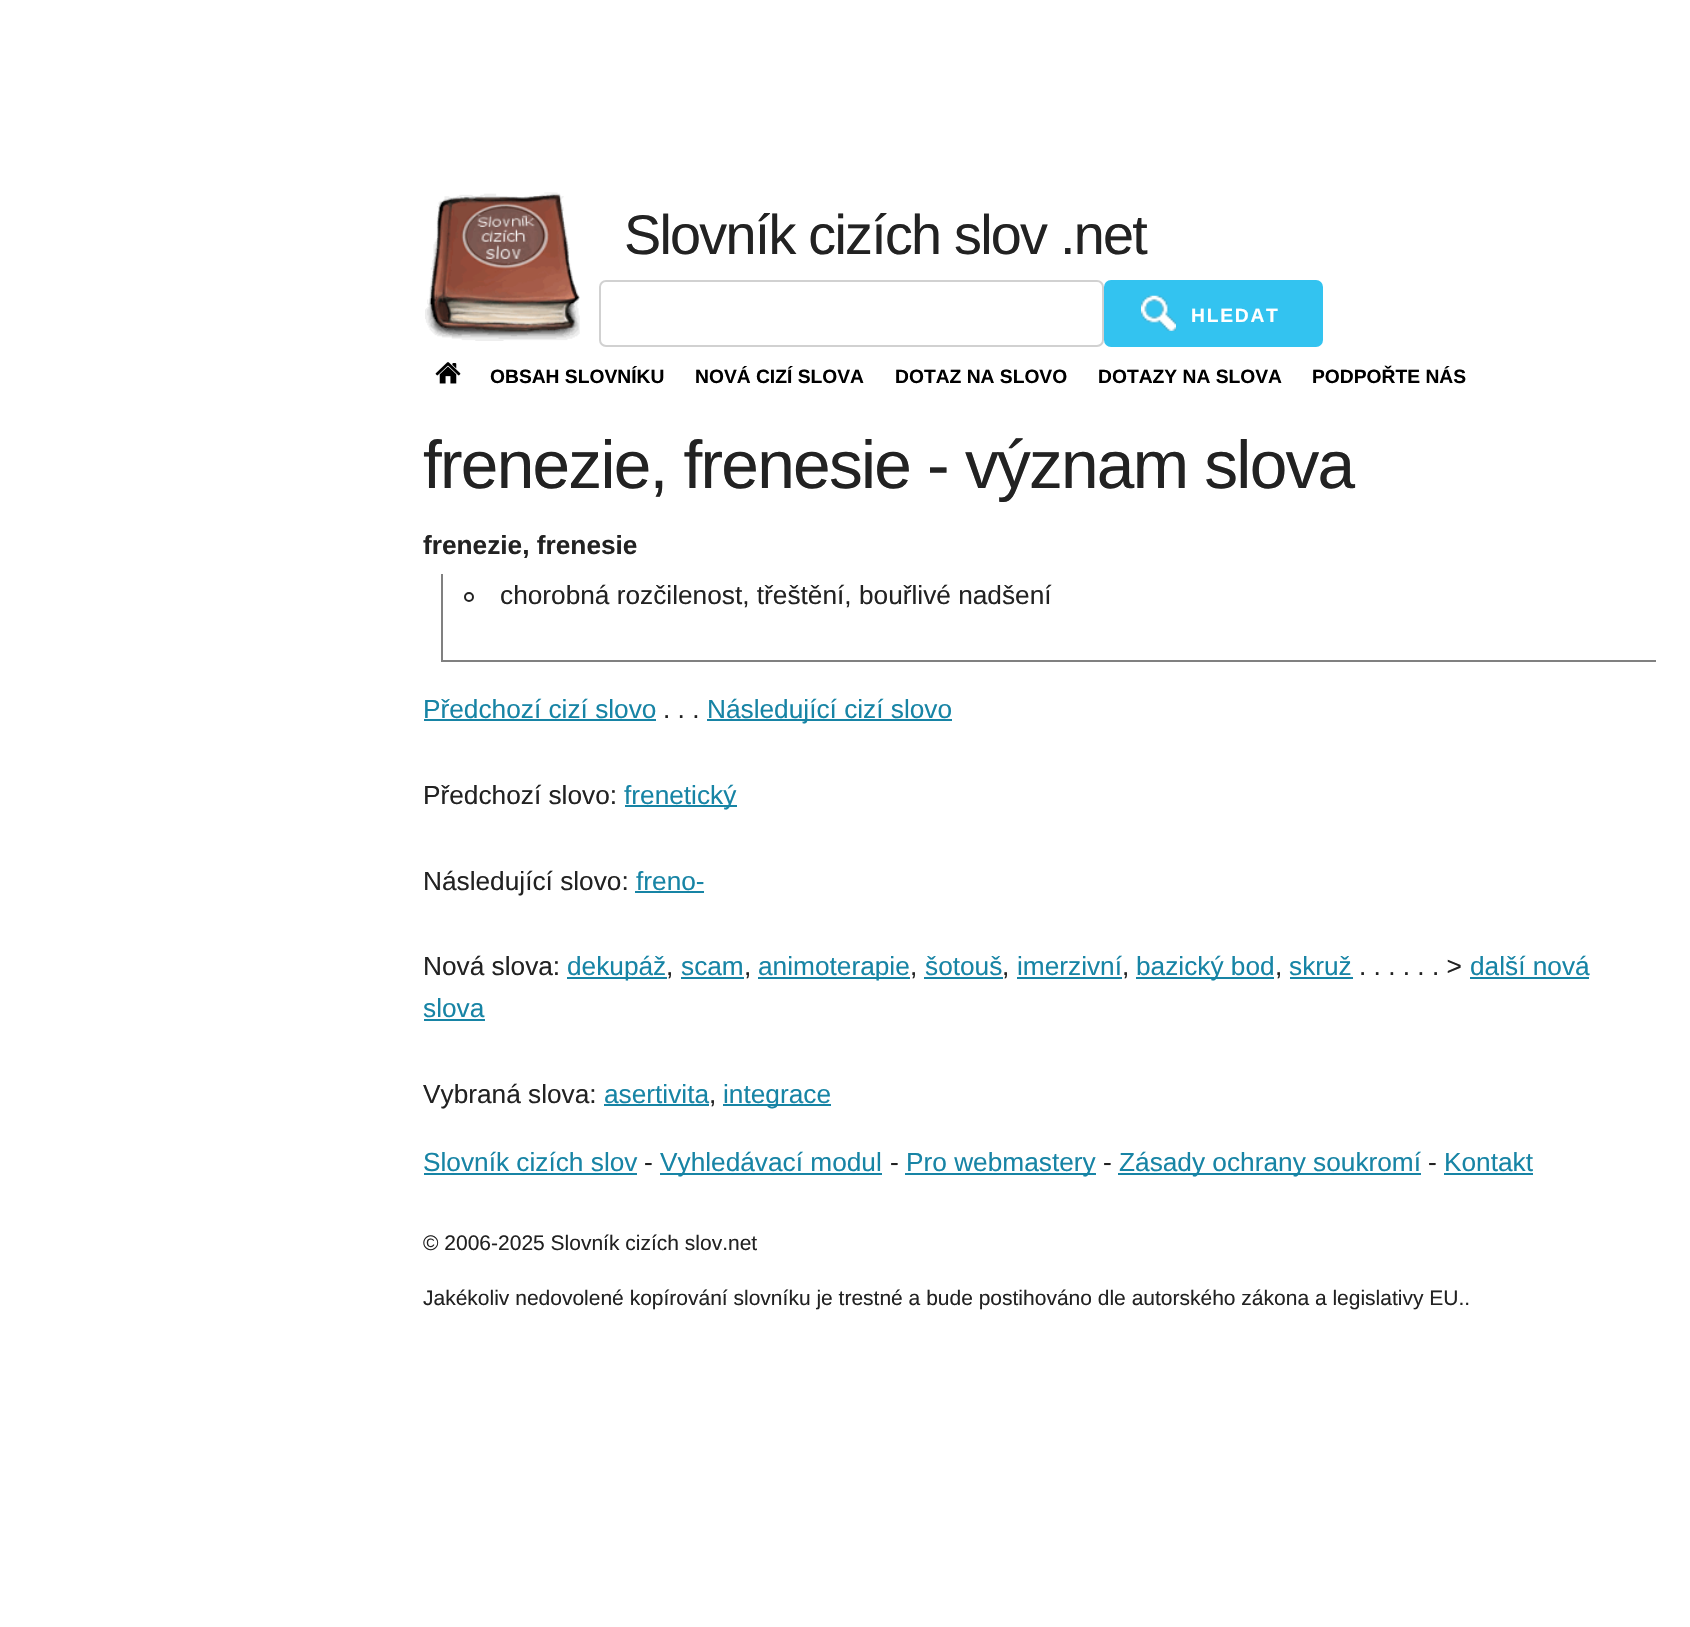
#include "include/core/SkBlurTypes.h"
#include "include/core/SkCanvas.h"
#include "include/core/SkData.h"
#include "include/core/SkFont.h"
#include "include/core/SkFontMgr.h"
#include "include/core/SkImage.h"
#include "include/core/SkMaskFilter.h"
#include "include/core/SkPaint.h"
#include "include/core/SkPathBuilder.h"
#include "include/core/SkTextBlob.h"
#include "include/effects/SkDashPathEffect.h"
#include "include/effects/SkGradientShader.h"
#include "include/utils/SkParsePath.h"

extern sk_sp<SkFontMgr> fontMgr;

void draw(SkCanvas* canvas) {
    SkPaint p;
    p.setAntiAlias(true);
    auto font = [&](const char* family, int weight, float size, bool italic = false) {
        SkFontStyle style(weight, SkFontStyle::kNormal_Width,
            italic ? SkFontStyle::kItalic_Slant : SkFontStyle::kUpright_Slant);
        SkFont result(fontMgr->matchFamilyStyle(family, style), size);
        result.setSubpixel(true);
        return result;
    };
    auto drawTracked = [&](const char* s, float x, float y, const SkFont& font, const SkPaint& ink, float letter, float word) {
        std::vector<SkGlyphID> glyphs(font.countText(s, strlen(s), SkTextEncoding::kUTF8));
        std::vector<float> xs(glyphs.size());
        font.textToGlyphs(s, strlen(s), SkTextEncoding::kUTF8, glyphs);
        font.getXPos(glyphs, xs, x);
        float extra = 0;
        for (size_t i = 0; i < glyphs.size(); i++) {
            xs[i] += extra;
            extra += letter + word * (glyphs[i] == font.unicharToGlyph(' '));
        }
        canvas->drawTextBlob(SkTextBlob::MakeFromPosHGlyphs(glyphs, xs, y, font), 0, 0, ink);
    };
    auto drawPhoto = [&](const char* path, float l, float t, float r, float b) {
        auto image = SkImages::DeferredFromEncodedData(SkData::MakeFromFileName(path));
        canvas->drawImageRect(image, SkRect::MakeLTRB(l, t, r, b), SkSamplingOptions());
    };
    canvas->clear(0xFFFFFFFF);
    drawPhoto("media/1.png", 425, 192, 580, 341);
    auto font1 = font("Liberation Sans", 400, 55.75f);
    p.setColor(0xFF222222);
    drawTracked("Slovník cizích slov .net", 624, 254, font1, p, -1.75f, 0);
    p.setStyle(SkPaint::kStroke_Style);
    p.setStrokeWidth(2);
    p.setColor(0xFFD1D1D1);
    canvas->drawRoundRect(SkRect::MakeLTRB(600, 281, 1103, 346), 6, 6, p);
    p.setStyle(SkPaint::kFill_Style);
    p.setColor(0xFF33C3F0);
    canvas->drawRoundRect(SkRect::MakeLTRB(1105, 281, 1322, 346), 6, 6, p);
    p.setStyle(SkPaint::kStroke_Style);
    canvas->drawRoundRect(SkRect::MakeLTRB(1105, 281, 1322, 346), 6, 6, p);
    drawPhoto("media/2.png", 1141, 295, 1176, 331);
    auto font2 = font("Liberation Sans", 700, 19.25f);
    p.setStyle(SkPaint::kFill_Style);
    p.setColor(0xFFFFFFFF);
    drawTracked("HLEDAT", 1191, 322, font2, p, 1.75f, 0);
    drawPhoto("media/3.png", 435, 362, 461, 384);
    p.setColor(0xFF000000);
    {
        const struct { const char* s; float x, y; } items[] = {
            {"OBSAH SLOVNÍKU", 490, 383},
            {"NOVÁ CIZÍ SLOVA", 695, 383},
            {"DOTAZ NA SLOVO", 895, 383},
            {"DOTAZY NA SLOVA", 1098, 383},
            {"PODPOŘTE NÁS", 1312, 383},
        };
        for (auto [s, x, y] : items) {
            canvas->drawString(s, x, y, font2, p);
        }
    }
    auto font3 = font("Liberation Sans", 400, 67.6f);
    p.setColor(0xFF222222);
    drawTracked("frenezie, frenesie - význam slova", 423, 488, font3, p, -1.75f, 0);
    auto font4 = font("Liberation Sans", 700, 26.25f);
    canvas->drawString("frenezie, frenesie", 423, 554, font4, p);
    p.setColor(0xFF808080);
    canvas->drawRect(SkRect::MakeLTRB(441, 660, 1656, 662), p);
    canvas->drawRect(SkRect::MakeLTRB(441, 574, 443, 662), p);
    p.setStyle(SkPaint::kStroke_Style);
    p.setColor(0xFF222222);
    canvas->drawCircle(469, 597, 4, p);
    auto font5 = font("Liberation Sans", 400, 26.25f);
    p.setStyle(SkPaint::kFill_Style);
    canvas->drawString("chorobná rozčilenost, třeštění, bouřlivé nadšení", 500, 604, font5, p);
    p.setColor(0xFF1784A5);
    canvas->drawString("Předchozí cizí slovo", 423, 718, font5, p);
    canvas->drawRect(SkRect::MakeLTRB(424, 719, 656, 721), p);
    p.setColor(0xFF222222);
    canvas->drawString(". . .", 663, 718, font5, p);
    p.setColor(0xFF1784A5);
    canvas->drawRect(SkRect::MakeLTRB(707, 719, 952, 721), p);
    canvas->drawString("Následující cizí slovo", 707, 718, font5, p);
    p.setColor(0xFF222222);
    canvas->drawString("Předchozí slovo:", 423, 804, font5, p);
    p.setColor(0xFF1784A5);
    canvas->drawRect(SkRect::MakeLTRB(625, 805, 737, 807), p);
    canvas->drawString("frenetický", 624, 804, font5, p);
    p.setColor(0xFF222222);
    canvas->drawString("Následující slovo:", 423, 890, font5, p);
    p.setColor(0xFF1784A5);
    canvas->drawString("freno-", 636, 890, font5, p);
    canvas->drawRect(SkRect::MakeLTRB(635, 891, 704, 893), p);
    p.setColor(0xFF222222);
    canvas->drawString("Nová slova:", 423, 975, font5, p);
    p.setColor(0xFF1784A5);
    canvas->drawRect(SkRect::MakeLTRB(567, 977, 667, 979), p);
    canvas->drawString("dekupáž", 567, 975, font5, p);
    p.setColor(0xFF222222);
    canvas->drawString(",", 666, 975, font5, p);
    p.setColor(0xFF1784A5);
    canvas->drawString("scam", 681, 975, font5, p);
    canvas->drawRect(SkRect::MakeLTRB(681, 977, 744, 979), p);
    p.setColor(0xFF222222);
    canvas->drawString(",", 744, 975, font5, p);
    p.setColor(0xFF1784A5);
    canvas->drawRect(SkRect::MakeLTRB(758, 977, 910, 979), p);
    canvas->drawString("animoterapie", 758, 975, font5, p);
    p.setColor(0xFF222222);
    canvas->drawString(",", 910, 975, font5, p);
    p.setColor(0xFF1784A5);
    canvas->drawString("šotouš", 925, 975, font5, p);
    canvas->drawRect(SkRect::MakeLTRB(924, 977, 1003, 979), p);
    p.setColor(0xFF222222);
    canvas->drawString(",", 1002, 975, font5, p);
    p.setColor(0xFF1784A5);
    canvas->drawString("imerzivní", 1017, 975, font5, p);
    canvas->drawRect(SkRect::MakeLTRB(1017, 977, 1122, 979), p);
    p.setColor(0xFF222222);
    canvas->drawString(",", 1122, 975, font5, p);
    p.setColor(0xFF1784A5);
    canvas->drawRect(SkRect::MakeLTRB(1136, 977, 1274, 979), p);
    canvas->drawString("bazický bod", 1136, 975, font5, p);
    p.setColor(0xFF222222);
    canvas->drawString(",", 1275, 975, font5, p);
    p.setColor(0xFF1784A5);
    canvas->drawString("skruž", 1289, 975, font5, p);
    canvas->drawRect(SkRect::MakeLTRB(1290, 977, 1353, 979), p);
    p.setColor(0xFF222222);
    canvas->drawString(". . . . . . >", 1359, 975, font5, p);
    p.setColor(0xFF1784A5);
    canvas->drawString("další nová", 1470, 975, font5, p);
    canvas->drawRect(SkRect::MakeLTRB(1470, 977, 1589, 979), p);
    canvas->drawString("slova", 423, 1017, font5, p);
    canvas->drawRect(SkRect::MakeLTRB(424, 1019, 485, 1021), p);
    p.setColor(0xFF222222);
    canvas->drawString("Vybraná slova:", 423, 1103, font5, p);
    p.setColor(0xFF1784A5);
    canvas->drawString("asertivita", 604, 1103, font5, p);
    canvas->drawRect(SkRect::MakeLTRB(604, 1104, 709, 1106), p);
    p.setColor(0xFF222222);
    canvas->drawString(",", 709, 1103, font5, p);
    p.setColor(0xFF1784A5);
    canvas->drawRect(SkRect::MakeLTRB(723, 1104, 831, 1106), p);
    canvas->drawString("integrace", 723, 1103, font5, p);
    canvas->drawString("Slovník cizích slov", 423, 1171, font5, p);
    canvas->drawRect(SkRect::MakeLTRB(424, 1173, 637, 1175), p);
    p.setColor(0xFF222222);
    canvas->drawString("-", 644, 1171, font5, p);
    p.setColor(0xFF1784A5);
    canvas->drawRect(SkRect::MakeLTRB(660, 1173, 882, 1175), p);
    canvas->drawString("Vyhledávací modul", 660, 1171, font5, p);
    p.setColor(0xFF222222);
    canvas->drawString("-", 890, 1171, font5, p);
    p.setColor(0xFF1784A5);
    canvas->drawRect(SkRect::MakeLTRB(905, 1173, 1096, 1175), p);
    canvas->drawString("Pro webmastery", 906, 1171, font5, p);
    p.setColor(0xFF222222);
    canvas->drawString("-", 1103, 1171, font5, p);
    p.setColor(0xFF1784A5);
    canvas->drawRect(SkRect::MakeLTRB(1118, 1173, 1421, 1175), p);
    canvas->drawString("Zásady ochrany soukromí", 1119, 1171, font5, p);
    p.setColor(0xFF222222);
    canvas->drawString("-", 1428, 1171, font5, p);
    p.setColor(0xFF1784A5);
    canvas->drawString("Kontakt", 1444, 1171, font5, p);
    canvas->drawRect(SkRect::MakeLTRB(1444, 1173, 1533, 1175), p);
    auto font6 = font("Liberation Sans", 400, 21);
    p.setColor(0xFF222222);
    canvas->drawString("© 2006-2025 Slovník cizích slov.net", 423, 1250, font6, p);
    canvas->drawString("Jakékoliv nedovolené kopírování slovníku je trestné a bude postihováno dle autorského zákona a legislativy EU..", 423, 1305, font6, p);
}
